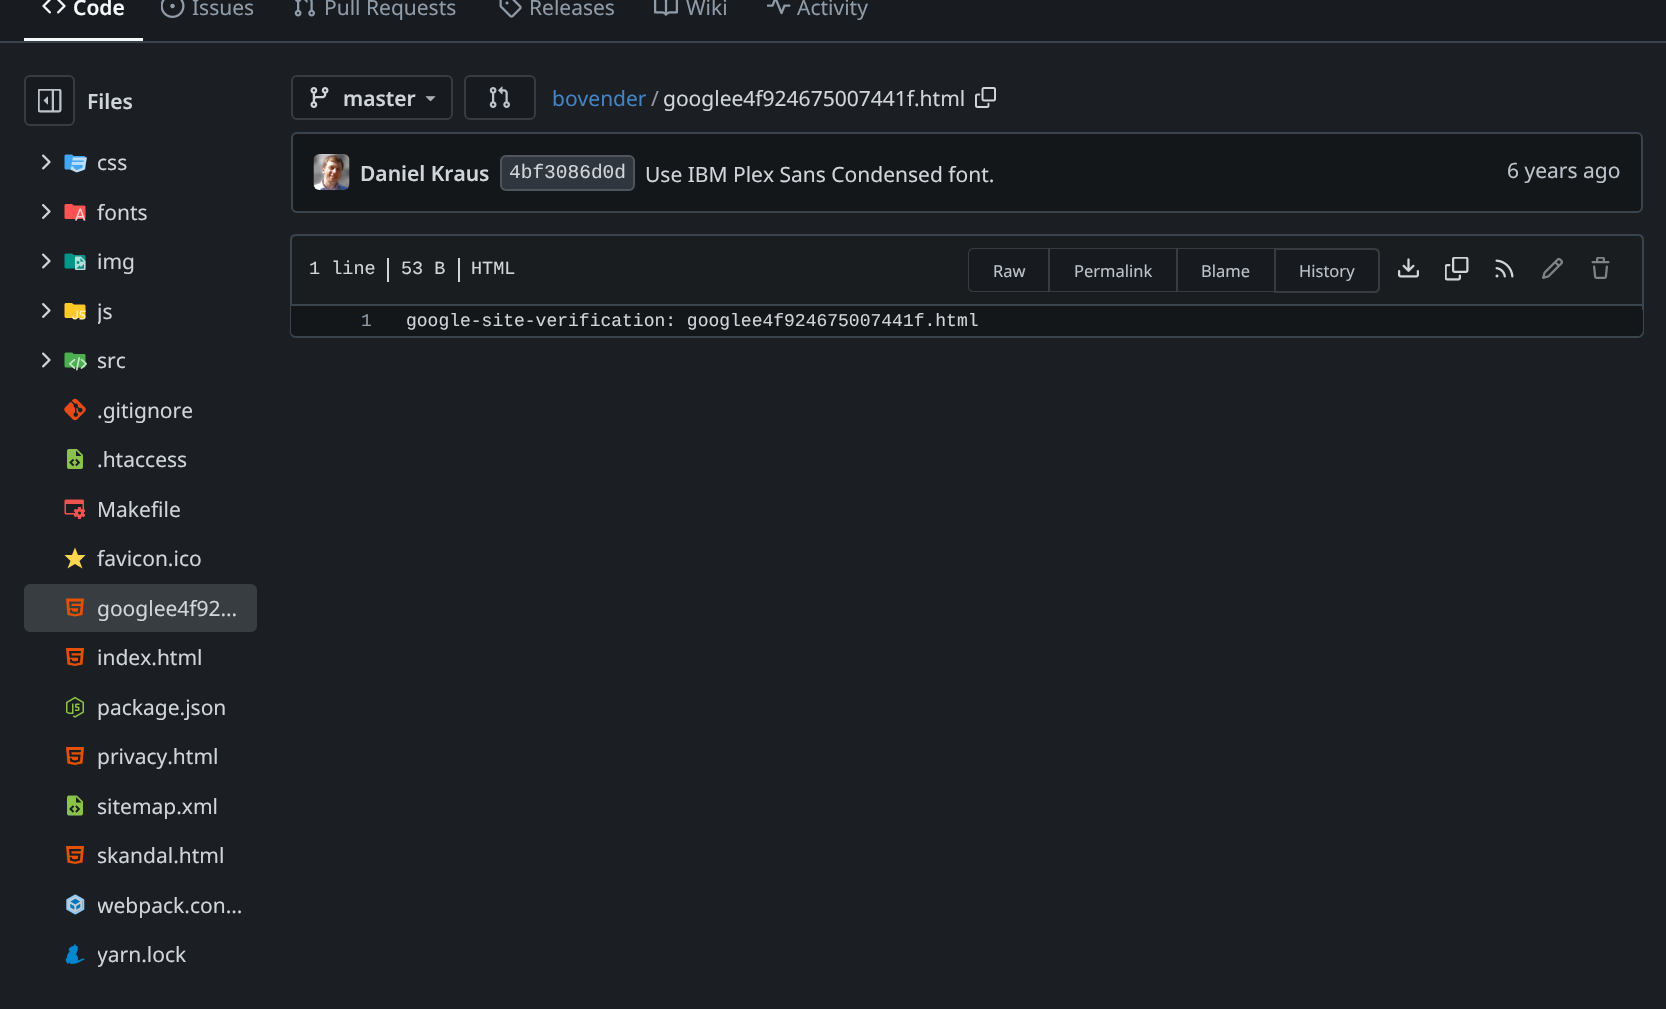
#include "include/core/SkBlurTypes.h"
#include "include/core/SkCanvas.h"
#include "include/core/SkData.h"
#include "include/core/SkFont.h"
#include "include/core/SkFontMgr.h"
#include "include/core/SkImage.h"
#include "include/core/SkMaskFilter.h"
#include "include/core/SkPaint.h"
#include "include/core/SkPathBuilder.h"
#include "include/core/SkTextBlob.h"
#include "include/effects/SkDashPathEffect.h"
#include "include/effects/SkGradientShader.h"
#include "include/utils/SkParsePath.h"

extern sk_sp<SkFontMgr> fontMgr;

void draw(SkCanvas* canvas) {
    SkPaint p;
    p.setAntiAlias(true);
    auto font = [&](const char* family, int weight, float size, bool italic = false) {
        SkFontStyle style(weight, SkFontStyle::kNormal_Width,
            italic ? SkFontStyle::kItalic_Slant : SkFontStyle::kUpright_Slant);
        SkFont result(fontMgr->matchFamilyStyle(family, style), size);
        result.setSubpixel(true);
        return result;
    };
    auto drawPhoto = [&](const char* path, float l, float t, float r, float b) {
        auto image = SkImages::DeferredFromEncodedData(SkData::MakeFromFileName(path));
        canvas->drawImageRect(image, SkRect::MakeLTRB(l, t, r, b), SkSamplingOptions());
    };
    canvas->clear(0xFF1B1F23);
    p.setColor(0xFF181C20);
    canvas->drawRect(SkRect::MakeLTRB(0, 0, 1666, 41), p);
    p.setColor(0xFFF7F8F9);
    canvas->drawRect(SkRect::MakeLTRB(24, 38, 143, 41), p);
    drawPhoto("media/1.png", 42, 0, 66, 14);
    auto font1 = font("Noto Sans", 600, 21);
    canvas->drawString("Code", 73, 15, font1, p);
    drawPhoto("media/2.png", 161, 0, 185, 18);
    auto font2 = font("Noto Sans", 400, 21);
    p.setColor(0xFF8F9BA8);
    canvas->drawString("Issues", 192, 15, font2, p);
    drawPhoto("media/3.png", 294, 0, 315, 17);
    canvas->drawString("Pull Requests", 324, 15, font2, p);
    drawPhoto("media/4.png", 499, 0, 522, 18);
    canvas->drawString("Releases", 529, 15, font2, p);
    drawPhoto("media/5.png", 654, 0, 678, 16);
    canvas->drawString("Wiki", 686, 15, font2, p);
    drawPhoto("media/6.png", 767, 0, 791, 15);
    canvas->drawString("Activity", 797, 15, font2, p);
    p.setColor(0xFF3B444C);
    canvas->drawRect(SkRect::MakeLTRB(0, 41, 1666, 43), p);
    p.setColor(0xFF171A1E);
    canvas->drawRoundRect(SkRect::MakeLTRB(25, 76, 74, 125), 5, 5, p);
    p.setStyle(SkPaint::kStroke_Style);
    p.setStrokeWidth(2);
    p.setColor(0xFF383C41);
    canvas->drawRoundRect(SkRect::MakeLTRB(25, 76, 74, 125), 5, 5, p);
    drawPhoto("media/7.png", 38, 89, 62, 113);
    p.setStyle(SkPaint::kFill_Style);
    p.setColor(0xFFD0D5DA);
    canvas->drawString("Files", 87, 109, font1, p);
    drawPhoto("media/8.png", 42, 154, 51, 170);
    drawPhoto("media/9.png", 64, 154, 87, 173);
    canvas->drawString("css", 97, 170, font2, p);
    drawPhoto("media/10.png", 42, 204, 51, 219);
    drawPhoto("media/11.png", 64, 204, 86, 221);
    canvas->drawString("fonts", 97, 220, font2, p);
    drawPhoto("media/8.png", 42, 253, 51, 269);
    drawPhoto("media/12.png", 64, 253, 86, 270);
    canvas->drawString("img", 97, 269, font2, p);
    drawPhoto("media/10.png", 42, 303, 51, 318);
    drawPhoto("media/13.png", 64, 303, 86, 320);
    canvas->save();
    canvas->clipRect(SkRect::MakeLTRB(98, 296, 113, 326));
    canvas->drawString("js", 97, 319, font2, p);
    canvas->restore();
    drawPhoto("media/8.png", 42, 352, 51, 368);
    drawPhoto("media/14.png", 64, 352, 87, 371);
    canvas->save();
    canvas->clipRect(SkRect::MakeLTRB(98, 345, 126, 375));
    canvas->drawString("src", 97, 368, font2, p);
    canvas->restore();
    drawPhoto("media/15.png", 64, 398, 86, 421);
    canvas->drawString(".gitignore", 97, 418, font2, p);
    drawPhoto("media/16.png", 67, 449, 83, 469);
    canvas->drawString(".htaccess", 97, 467, font2, p);
    drawPhoto("media/17.png", 64, 499, 86, 519);
    canvas->drawString("Makefile", 97, 517, font2, p);
    drawPhoto("media/18.png", 64, 547, 86, 569);
    canvas->drawString("favicon.ico", 97, 566, font2, p);
    p.setColor(0xFF383D42);
    canvas->drawRoundRect(SkRect::MakeLTRB(24, 584, 257, 632), 6, 6, p);
    drawPhoto("media/19.png", 66, 598, 84, 617);
    p.setColor(0xFFD0D5DA);
    canvas->drawString("googlee4f92…", 97, 616, font2, p);
    drawPhoto("media/20.png", 66, 648, 84, 666);
    canvas->drawString("index.html", 97, 665, font2, p);
    drawPhoto("media/21.png", 66, 696, 84, 718);
    canvas->drawString("package.json", 97, 715, font2, p);
    drawPhoto("media/20.png", 66, 747, 84, 765);
    canvas->drawString("privacy.html", 97, 764, font2, p);
    drawPhoto("media/22.png", 67, 795, 83, 816);
    canvas->save();
    canvas->clipRect(SkRect::MakeLTRB(98, 791, 248, 821));
    canvas->drawString("sitemap.xml", 97, 814, font2, p);
    canvas->restore();
    drawPhoto("media/20.png", 66, 846, 84, 864);
    canvas->save();
    canvas->clipRect(SkRect::MakeLTRB(98, 840, 248, 870));
    canvas->drawString("skandal.html", 97, 863, font2, p);
    canvas->restore();
    drawPhoto("media/23.png", 66, 894, 85, 915);
    canvas->save();
    canvas->clipRect(SkRect::MakeLTRB(98, 890, 248, 920));
    canvas->drawString("webpack.con…", 97, 913, font2, p);
    canvas->restore();
    drawPhoto("media/24.png", 65, 944, 85, 964);
    canvas->save();
    canvas->clipRect(SkRect::MakeLTRB(98, 939, 248, 969));
    canvas->drawString("yarn.lock", 97, 962, font2, p);
    canvas->restore();
    p.setColor(0xFF171A1E);
    canvas->drawRoundRect(SkRect::MakeLTRB(292, 76, 452, 119), 5, 5, p);
    p.setStyle(SkPaint::kStroke_Style);
    p.setColor(0xFF383C41);
    canvas->drawRoundRect(SkRect::MakeLTRB(292, 76, 452, 119), 5, 5, p);
    drawPhoto("media/25.png", 310, 87, 329, 108);
    p.setStyle(SkPaint::kFill_Style);
    p.setColor(0xFFD0D5DA);
    canvas->drawString("master", 343, 106, font1, p);
    drawPhoto("media/26.png", 425, 96, 436, 102);
    p.setColor(0xFF171A1E);
    canvas->drawRoundRect(SkRect::MakeLTRB(465, 76, 535, 119), 5, 5, p);
    p.setStyle(SkPaint::kStroke_Style);
    p.setColor(0xFF383C41);
    canvas->drawRoundRect(SkRect::MakeLTRB(465, 76, 535, 119), 5, 5, p);
    drawPhoto("media/27.png", 489, 86, 510, 108);
    p.setStyle(SkPaint::kFill_Style);
    p.setColor(0xFF4183C4);
    canvas->drawString("bovender", 552, 106, font2, p);
    p.setColor(0xFF8F9BA8);
    canvas->drawString("/", 651, 106, font2, p);
    p.setColor(0xFFD0D5DA);
    canvas->drawString("googlee4f924675007441f.html", 663, 106, font2, p);
    drawPhoto("media/28.png", 975, 87, 996, 108);
    p.setColor(0xFF14171A);
    canvas->drawRoundRect(SkRect::MakeLTRB(292, 133, 1642, 212), 5, 5, p);
    p.setStyle(SkPaint::kStroke_Style);
    p.setColor(0xFF3B444C);
    canvas->drawRoundRect(SkRect::MakeLTRB(292, 133, 1642, 212), 5, 5, p);
    drawPhoto("media/29.png", 313, 154, 350, 190);
    p.setStyle(SkPaint::kFill_Style);
    p.setColor(0xFFD0D5DA);
    canvas->drawString("Daniel Kraus", 360, 181, font1, p);
    p.setColor(0xFF30363D);
    canvas->drawRoundRect(SkRect::MakeLTRB(500, 155, 635, 191), 6, 6, p);
    p.setStyle(SkPaint::kStroke_Style);
    p.setColor(0x29E8F3FF);
    canvas->drawRoundRect(SkRect::MakeLTRB(501, 156, 634, 190), 5, 5, p);
    auto font3 = font("Liberation Mono", 400, 19.5f);
    p.setStyle(SkPaint::kFill_Style);
    p.setColor(0xFFD0D5DA);
    canvas->drawString("4bf3086d0d", 509, 178, font3, p);
    canvas->drawString("Use IBM Plex Sans Condensed font.", 645, 182, font2, p);
    p.setColor(0xFFBCC3CB);
    canvas->drawString("6 years ago", 1507, 178, font2, p);
    p.setColor(0xFF1A1D1F);
    canvas->drawPath(SkPathBuilder().moveTo(296, 235).lineTo(1638, 235).cubicTo(1641, 235, 1643, 237, 1643, 240).lineTo(1643, 305).lineTo(291, 305).lineTo(291, 240).cubicTo(291, 237, 293, 235, 296, 235).close().detach(), p);
    p.setStyle(SkPaint::kStroke_Style);
    p.setColor(0xFF3B444C);
    canvas->drawPath(SkPathBuilder().moveTo(296, 235).lineTo(1638, 235).cubicTo(1641, 235, 1643, 237, 1643, 240).lineTo(1643, 305).lineTo(291, 305).lineTo(291, 240).cubicTo(291, 237, 293, 235, 296, 235).close().detach(), p);
    auto font4 = font("Liberation Mono", 400, 18.5f);
    p.setStyle(SkPaint::kFill_Style);
    p.setColor(0xFFD0D5DA);
    canvas->drawString("1 line", 309, 274, font4, p);
    canvas->drawRect(SkRect::MakeLTRB(387, 258, 389, 282), p);
    canvas->drawString("53 B", 401, 274, font4, p);
    canvas->drawRect(SkRect::MakeLTRB(458, 258, 460, 282), p);
    canvas->drawString("HTML", 471, 274, font4, p);
    p.setColor(0xFF171A1E);
    canvas->drawPath(SkPathBuilder().moveTo(974, 248).lineTo(1049, 248).lineTo(1049, 293).lineTo(974, 293).cubicTo(970.5f, 293, 968, 290.5f, 968, 287).lineTo(968, 254).cubicTo(968, 250.5f, 970.5f, 248, 974, 248).close().detach(), p);
    p.setColor(0xFF383C41);
    canvas->drawPath(SkPathBuilder(SkPathFillType::kEvenOdd).moveTo(974, 248).lineTo(1048, 248).lineTo(1048, 292).lineTo(974, 292).cubicTo(970, 292, 968, 290, 968, 286).lineTo(968, 254).cubicTo(968, 250, 970, 248, 974, 248).close().moveTo(974, 249).lineTo(1048, 249).lineTo(1048, 291).lineTo(974, 291).cubicTo(971, 291, 969, 289, 969, 286).lineTo(969, 254).cubicTo(969, 251, 971, 249, 974, 249).close().detach(), p);
    auto font5 = font("Noto Sans", 400, 16.5f);
    p.setColor(0xFFBCC3CB);
    canvas->drawString("Raw", 993, 277, font5, p);
    p.setColor(0xFF171A1E);
    canvas->drawRect(SkRect::MakeLTRB(1049, 248, 1274, 293), p);
    p.setColor(0xFF383C41);
    canvas->drawPath(SkPathBuilder().moveTo(1048, 248).lineTo(1176, 248).lineTo(1176, 249).lineTo(1050, 249).close().detach(), p);
    canvas->drawPath(SkPathBuilder().moveTo(1176, 292).lineTo(1048, 292).lineTo(1050, 291).lineTo(1176, 291).close().detach(), p);
    p.setColor(0x29E8F3FF);
    canvas->drawPath(SkPathBuilder().moveTo(1048, 292).lineTo(1048, 248).lineTo(1050, 249).lineTo(1050, 291).close().detach(), p);
    p.setColor(0xFFBCC3CB);
    canvas->drawString("Permalink", 1074, 277, font5, p);
    p.setColor(0xFF383C41);
    canvas->drawPath(SkPathBuilder().moveTo(1176, 248).lineTo(1274, 248).lineTo(1274, 249).lineTo(1178, 249).close().detach(), p);
    canvas->drawPath(SkPathBuilder().moveTo(1274, 292).lineTo(1176, 292).lineTo(1178, 291).lineTo(1274, 291).close().detach(), p);
    p.setColor(0x29E8F3FF);
    canvas->drawPath(SkPathBuilder().moveTo(1176, 292).lineTo(1176, 248).lineTo(1178, 249).lineTo(1178, 291).close().detach(), p);
    p.setColor(0xFFBCC3CB);
    canvas->drawString("Blame", 1201, 277, font5, p);
    p.setColor(0xFF171A1E);
    canvas->drawPath(SkPathBuilder().moveTo(1275, 249).lineTo(1374, 249).cubicTo(1377, 249, 1379, 251, 1379, 254).lineTo(1379, 287).cubicTo(1379, 290, 1377, 292, 1374, 292).lineTo(1275, 292).close().detach(), p);
    p.setStyle(SkPaint::kStroke_Style);
    p.setColor(0xFF383C41);
    canvas->drawPath(SkPathBuilder().moveTo(1275, 249).lineTo(1374, 249).cubicTo(1377, 249, 1379, 251, 1379, 254).lineTo(1379, 287).cubicTo(1379, 290, 1377, 292, 1374, 292).lineTo(1275, 292).close().detach(), p);
    p.setStyle(SkPaint::kFill_Style);
    p.setColor(0xFFBCC3CB);
    canvas->drawString("History", 1299, 277, font5, p);
    drawPhoto("media/30.png", 1398, 258, 1419, 278);
    drawPhoto("media/31.png", 1445, 257, 1469, 281);
    drawPhoto("media/32.png", 1495, 259, 1514, 278);
    drawPhoto("media/33.png", 1542, 257, 1564, 279);
    drawPhoto("media/34.png", 1591, 257, 1610, 279);
    p.setColor(0xFF14171A);
    canvas->drawPath(SkPathBuilder().moveTo(290, 306).lineTo(1644, 306).lineTo(1644, 332).cubicTo(1644, 335.5f, 1641.5f, 338, 1638, 338).lineTo(296, 338).cubicTo(292.5f, 338, 290, 335.5f, 290, 332).close().detach(), p);
    p.setColor(0xFF3B444C);
    canvas->drawPath(SkPathBuilder(SkPathFillType::kEvenOdd).moveTo(290, 306).lineTo(1644, 306).lineTo(1644, 332).cubicTo(1644, 335, 1641, 338, 1638, 338).lineTo(296, 338).cubicTo(292, 338, 290, 335, 290, 332).close().moveTo(291, 306).lineTo(1642, 306).lineTo(1642, 332).cubicTo(1642, 334, 1640, 336, 1638, 336).lineTo(296, 336).cubicTo(293, 336, 291, 334, 291, 332).close().detach(), p);
    p.setColor(0xFF14171A);
    canvas->drawRoundRect(SkRect::MakeLTRB(291, 306, 1643, 336), 6, 6, p);
    auto font6 = font("Liberation Mono", 400, 18);
    p.setColor(0xFF8F9BA8);
    canvas->drawString("1", 361, 326, font6, p);
    p.setColor(0xFFD0D5DA);
    canvas->drawString("google-site-verification: googlee4f924675007441f.html", 406, 326, font6, p);
}
